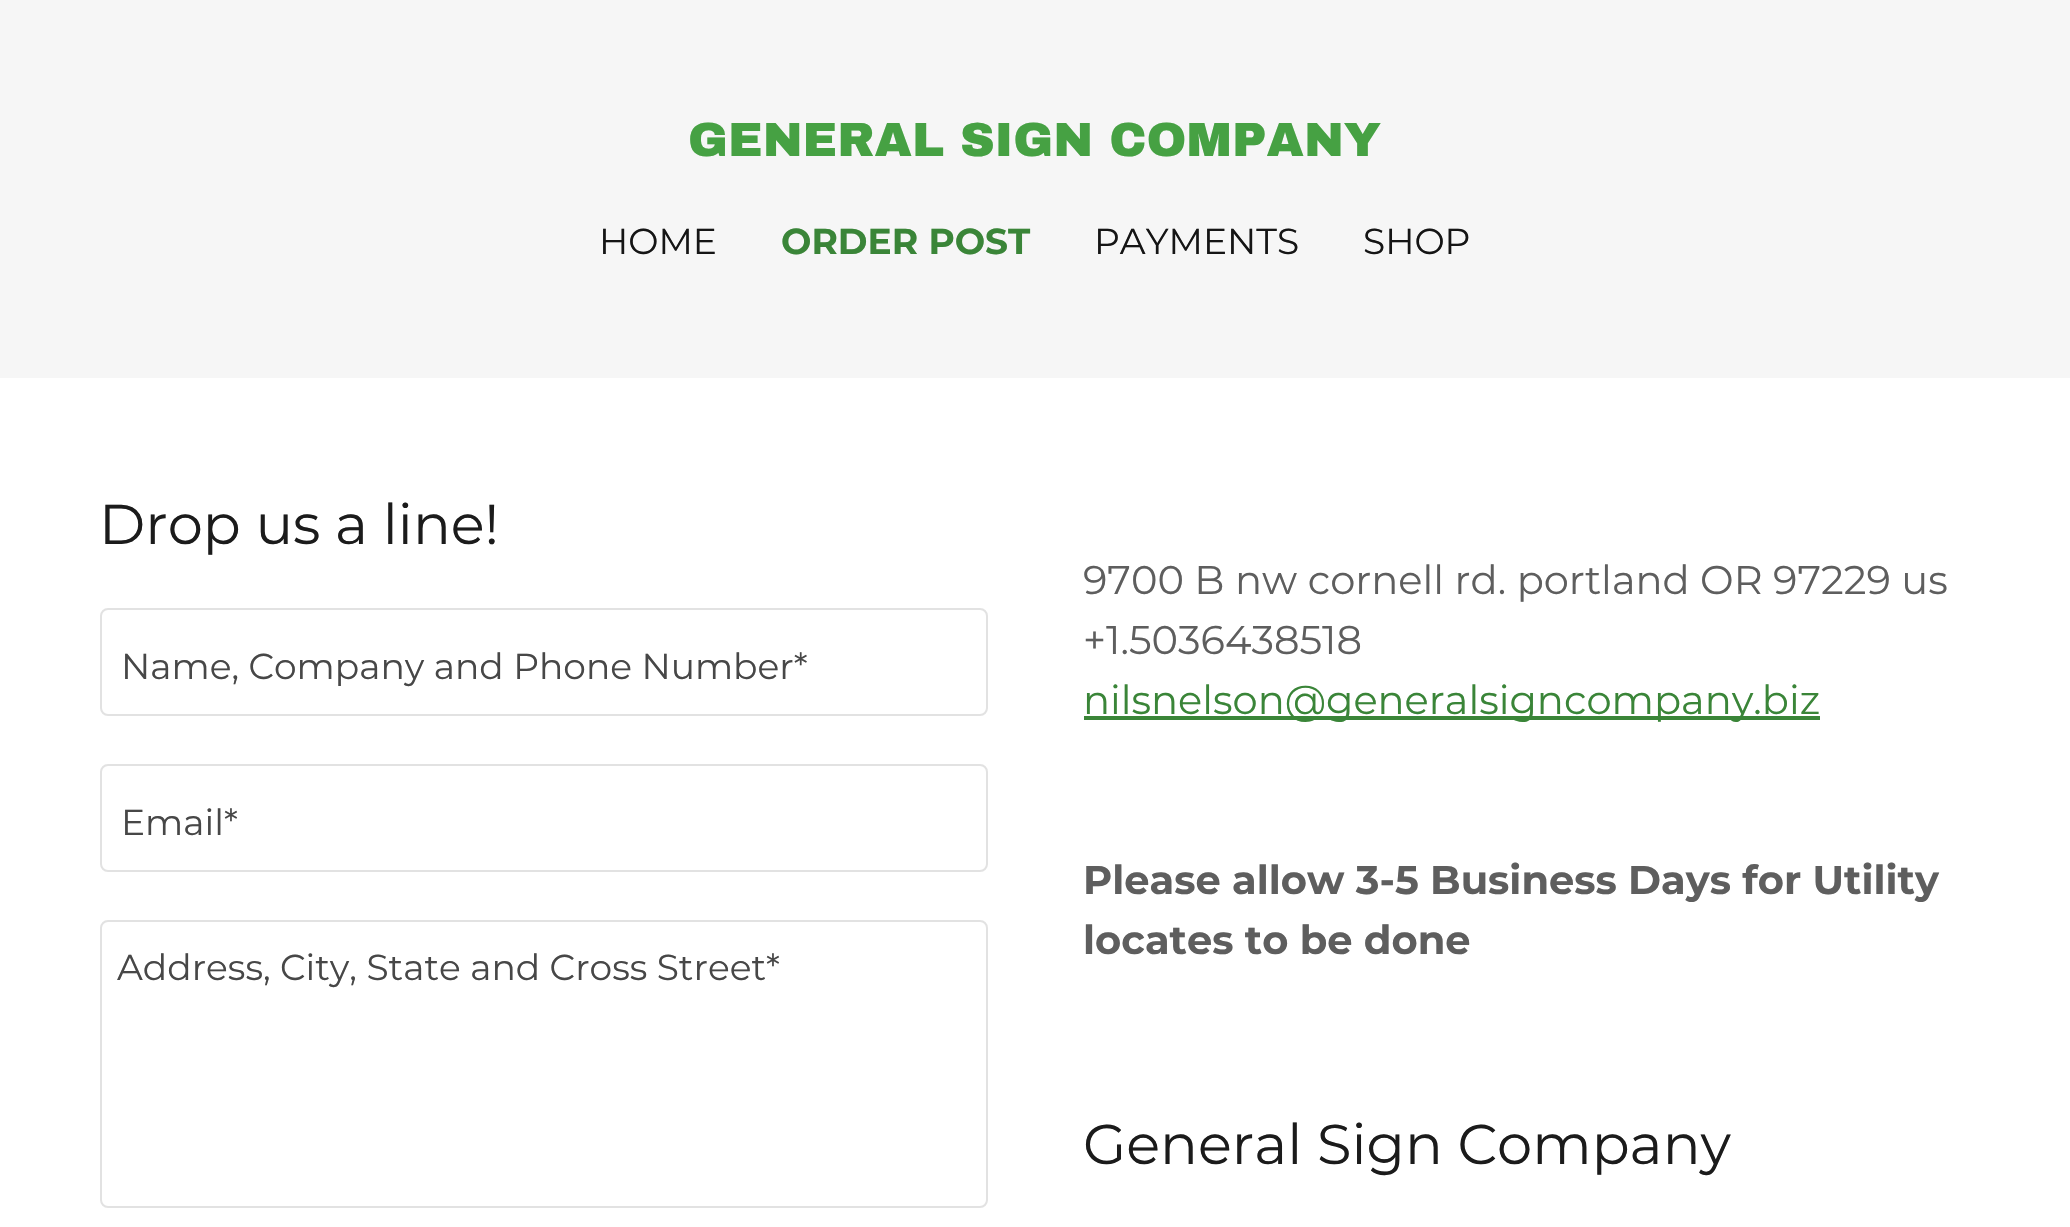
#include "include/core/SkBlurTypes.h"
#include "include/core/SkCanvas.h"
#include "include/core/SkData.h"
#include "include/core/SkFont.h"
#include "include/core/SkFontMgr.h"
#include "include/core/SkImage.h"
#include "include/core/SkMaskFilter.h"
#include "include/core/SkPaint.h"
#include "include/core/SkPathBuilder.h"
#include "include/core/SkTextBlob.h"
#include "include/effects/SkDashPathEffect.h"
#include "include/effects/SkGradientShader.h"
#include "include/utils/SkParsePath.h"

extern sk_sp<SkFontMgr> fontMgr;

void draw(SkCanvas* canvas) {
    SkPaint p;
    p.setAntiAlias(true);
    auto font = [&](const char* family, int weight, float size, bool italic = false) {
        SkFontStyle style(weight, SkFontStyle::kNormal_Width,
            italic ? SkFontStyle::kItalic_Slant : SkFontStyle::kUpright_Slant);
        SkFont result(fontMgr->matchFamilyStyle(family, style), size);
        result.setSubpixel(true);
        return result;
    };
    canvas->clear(0xFFF6F6F6);
    auto font1 = font("Archivo Black", 900, 48);
    p.setColor(0xFF46A143);
    canvas->drawString("GENERAL SIGN COMPANY", 688, 156, font1, p);
    auto font2 = font("Montserrat", 400, 36);
    p.setColor(0xFF151515);
    canvas->drawString("HOME", 599, 254, font2, p);
    auto font3 = font("Montserrat", 700, 36);
    p.setColor(0xFF3A8538);
    canvas->drawString("ORDER POST", 781, 254, font3, p);
    p.setColor(0xFF151515);
    canvas->drawString("PAYMENTS", 1094, 254, font2, p);
    canvas->drawString("SHOP", 1363, 254, font2, p);
    p.setColor(0xFFFFFFFF);
    canvas->drawRect(SkRect::MakeLTRB(0, 378, 2070, 1227), p);
    auto font4 = font("Montserrat", 400, 56);
    p.setColor(0xFF1B1B1B);
    canvas->drawString("Drop us a line!", 99, 544, font4, p);
    p.setStyle(SkPaint::kStroke_Style);
    p.setStrokeWidth(2);
    p.setColor(0xFFE2E2E2);
    canvas->drawRoundRect(SkRect::MakeLTRB(101, 609, 987, 715), 7, 7, p);
    p.setStyle(SkPaint::kFill_Style);
    p.setColor(0xFF474747);
    canvas->drawString("Name, Company and Phone Number*", 121, 679, font2, p);
    p.setStyle(SkPaint::kStroke_Style);
    p.setColor(0xFFE2E2E2);
    canvas->drawRoundRect(SkRect::MakeLTRB(101, 765, 987, 871), 7, 7, p);
    p.setStyle(SkPaint::kFill_Style);
    p.setColor(0xFF474747);
    canvas->drawString("Email*", 121, 835, font2, p);
    p.setStyle(SkPaint::kStroke_Style);
    p.setColor(0xFFE2E2E2);
    canvas->drawRoundRect(SkRect::MakeLTRB(101, 921, 987, 1207), 7, 7, p);
    p.setStyle(SkPaint::kFill_Style);
    p.setColor(0xFF474747);
    canvas->drawString("Address, City, State and Cross Street*", 117, 980, font2, p);
    auto font5 = font("Montserrat", 400, 40);
    p.setColor(0xFF5E5E5E);
    canvas->drawString("9700 B nw cornell rd. portland OR 97229 us", 1083, 594, font5, p);
    canvas->drawString("+1.5036438518", 1083, 654, font5, p);
    p.setColor(0xFF3A8538);
    canvas->drawRect(SkRect::MakeLTRB(1084, 716, 1820, 720), p);
    canvas->drawString("nilsnelson@generalsigncompany.biz", 1083, 714, font5, p);
    auto font6 = font("Montserrat", 700, 40);
    p.setColor(0xFF5E5E5E);
    canvas->drawString("Please allow 3-5 Business Days for Utility", 1083, 894, font6, p);
    canvas->drawString("locates to be done", 1083, 954, font6, p);
    p.setColor(0xFF1B1B1B);
    canvas->drawString("General Sign Company", 1083, 1164, font4, p);
}
